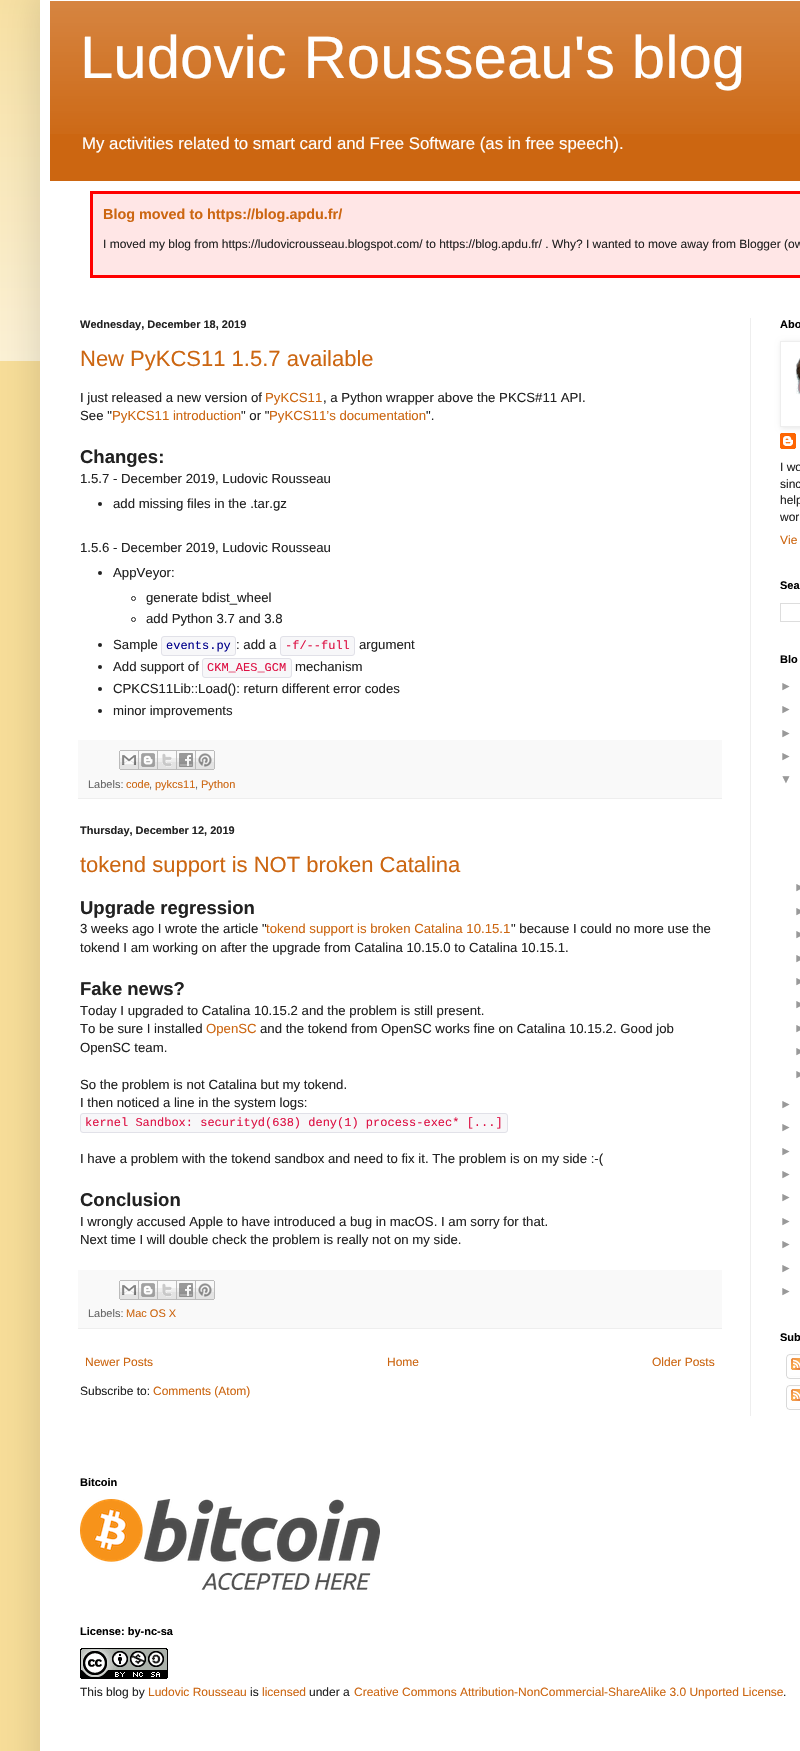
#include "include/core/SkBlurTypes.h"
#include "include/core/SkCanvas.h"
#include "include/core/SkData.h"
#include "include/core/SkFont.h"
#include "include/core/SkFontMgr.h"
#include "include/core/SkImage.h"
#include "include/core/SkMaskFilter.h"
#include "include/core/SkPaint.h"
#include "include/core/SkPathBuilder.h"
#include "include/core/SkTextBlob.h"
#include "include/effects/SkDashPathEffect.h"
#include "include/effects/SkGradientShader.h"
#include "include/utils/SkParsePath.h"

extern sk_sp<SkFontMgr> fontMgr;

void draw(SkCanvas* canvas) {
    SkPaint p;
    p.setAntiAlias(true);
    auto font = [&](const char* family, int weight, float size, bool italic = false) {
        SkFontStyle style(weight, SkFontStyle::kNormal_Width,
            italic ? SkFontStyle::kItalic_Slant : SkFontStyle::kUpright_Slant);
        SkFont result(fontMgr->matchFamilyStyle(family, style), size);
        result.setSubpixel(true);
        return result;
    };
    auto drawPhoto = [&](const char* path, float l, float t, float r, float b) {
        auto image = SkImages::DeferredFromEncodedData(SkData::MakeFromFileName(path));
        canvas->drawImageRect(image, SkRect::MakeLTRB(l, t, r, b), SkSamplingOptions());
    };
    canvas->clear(0xFFF8DE99);
    drawPhoto("media/1.png", 0, 0, 40, 361);
    p.setColor(0x26000000);
    p.setMaskFilter(SkMaskFilter::MakeBlur(kNormal_SkBlurStyle, 20));
    canvas->drawRect(SkRect::MakeLTRB(40, -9, 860, 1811), p);
    p.setMaskFilter(nullptr);
    p.setColor(0xFFFFFFFF);
    canvas->drawRect(SkRect::MakeLTRB(40, 0, 800, 1751), p);
    p.setColor(0xFFCC6611);
    canvas->drawRect(SkRect::MakeLTRB(50, 1, 800, 181), p);
    drawPhoto("media/2.png", 50, 1, 800, 134);
    auto font1 = font("Liberation Sans", 400, 60);
    p.setColor(0xFFFFFFFF);
    canvas->drawString("Ludovic Rousseau's blog", 80, 78, font1, p);
    auto font2 = font("Liberation Sans", 400, 16.8f);
    canvas->drawString("My activities related to smart card and Free Software (as in free speech).", 82, 149, font2, p);
    p.setColor(0xFFFFE6E6);
    canvas->drawRect(SkRect::MakeLTRB(91.5f, 192.5f, 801.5f, 276.5f), p);
    p.setStyle(SkPaint::kStroke_Style);
    p.setStrokeWidth(3);
    p.setColor(0xFFFF0000);
    canvas->drawRect(SkRect::MakeLTRB(91.5f, 192.5f, 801.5f, 276.5f), p);
    auto font3 = font("Liberation Sans", 700, 14.4f);
    p.setStyle(SkPaint::kFill_Style);
    p.setColor(0xFFCC6611);
    canvas->drawString("Blog moved to https://blog.apdu.fr/", 103, 219, font3, p);
    auto font4 = font("Liberation Sans", 400, 12);
    p.setColor(0xFF222222);
    canvas->drawString("I moved my blog from https://ludovicrousseau.blogspot.com/ to https://blog.apdu.fr/ . Why? I wanted to move away from Blogger (ow", 103, 248, font4, p);
    p.setColor(0xFFEEEEEE);
    canvas->drawRect(SkRect::MakeLTRB(750, 318, 751, 1416), p);
    auto font5 = font("Liberation Sans", 700, 11);
    p.setColor(0xFF222222);
    canvas->drawString("Wednesday, December 18, 2019", 80, 328, font5, p);
    auto font6 = font("Liberation Sans", 400, 22);
    p.setColor(0xFFCC6611);
    canvas->drawString("New PyKCS11 1.5.7 available", 80, 366, font6, p);
    auto font7 = font("Liberation Sans", 400, 13.2f);
    p.setColor(0xFF222222);
    canvas->drawString("I just released a new version of", 80, 402, font7, p);
    p.setColor(0xFFCC6611);
    canvas->drawString("PyKCS11", 265, 402, font7, p);
    p.setColor(0xFF222222);
    canvas->drawString(", a Python wrapper above the PKCS#11 API.", 323, 402, font7, p);
    canvas->drawString("See \"", 80, 420, font7, p);
    p.setColor(0xFFCC6611);
    canvas->drawString("PyKCS11 introduction", 112, 420, font7, p);
    p.setColor(0xFF222222);
    canvas->drawString("\" or \"", 241, 420, font7, p);
    p.setColor(0xFFCC6611);
    canvas->drawString("PyKCS11’s documentation", 269, 420, font7, p);
    p.setColor(0xFF222222);
    canvas->drawString("\".", 426, 420, font7, p);
    auto font8 = font("Liberation Sans", 700, 18.5f);
    canvas->drawString("Changes:", 80, 463, font8, p);
    canvas->drawString("1.5.7 - December 2019, Ludovic Rousseau", 80, 483, font7, p);
    canvas->drawCircle(100, 504, 2, p);
    canvas->drawString("add missing files in the .tar.gz", 113, 508, font7, p);
    canvas->drawString("1.5.6 - December 2019, Ludovic Rousseau", 80, 552, font7, p);
    canvas->drawCircle(100, 573, 2, p);
    canvas->drawString("AppVeyor:", 113, 577, font7, p);
    p.setStyle(SkPaint::kStroke_Style);
    p.setStrokeWidth(1);
    canvas->drawCircle(133.5f, 598.5f, 2, p);
    p.setStyle(SkPaint::kFill_Style);
    canvas->drawString("generate bdist_wheel", 146, 602, font7, p);
    p.setStyle(SkPaint::kStroke_Style);
    canvas->drawCircle(133.5f, 619.5f, 2, p);
    p.setStyle(SkPaint::kFill_Style);
    canvas->drawString("add Python 3.7 and 3.8", 146, 623, font7, p);
    canvas->drawCircle(100, 645, 2, p);
    canvas->drawString("Sample", 113, 649, font7, p);
    p.setColor(0xFFF7F7F9);
    canvas->drawRoundRect(SkRect::MakeLTRB(161.5f, 636.5f, 235.5f, 655.5f), 2.5f, 2.5f, p);
    p.setStyle(SkPaint::kStroke_Style);
    p.setColor(0xFFE1E1E8);
    canvas->drawRoundRect(SkRect::MakeLTRB(161.5f, 636.5f, 235.5f, 655.5f), 2.5f, 2.5f, p);
    auto font9 = font("Liberation Mono", 400, 12);
    p.setStyle(SkPaint::kFill_Style);
    p.setColor(0xFF00008B);
    canvas->drawString("events.py", 166, 649, font9, p);
    p.setColor(0xFF222222);
    canvas->drawString(": add a", 236, 649, font7, p);
    p.setColor(0xFFF7F7F9);
    canvas->drawRoundRect(SkRect::MakeLTRB(280.5f, 636.5f, 354.5f, 655.5f), 2.5f, 2.5f, p);
    p.setStyle(SkPaint::kStroke_Style);
    p.setColor(0xFFE1E1E8);
    canvas->drawRoundRect(SkRect::MakeLTRB(280.5f, 636.5f, 354.5f, 655.5f), 2.5f, 2.5f, p);
    p.setStyle(SkPaint::kFill_Style);
    p.setColor(0xFFDD1144);
    canvas->drawString("-f/--full", 285, 649, font9, p);
    p.setColor(0xFF222222);
    canvas->drawString("argument", 359, 649, font7, p);
    canvas->drawCircle(100, 667, 2, p);
    canvas->drawString("Add support of", 113, 671, font7, p);
    p.setColor(0xFFF7F7F9);
    canvas->drawRoundRect(SkRect::MakeLTRB(202.5f, 658.5f, 291.5f, 677.5f), 2.5f, 2.5f, p);
    p.setStyle(SkPaint::kStroke_Style);
    p.setColor(0xFFE1E1E8);
    canvas->drawRoundRect(SkRect::MakeLTRB(202.5f, 658.5f, 291.5f, 677.5f), 2.5f, 2.5f, p);
    p.setStyle(SkPaint::kFill_Style);
    p.setColor(0xFFDD1144);
    canvas->drawString("CKM_AES_GCM", 207, 671, font9, p);
    p.setColor(0xFF222222);
    canvas->drawString("mechanism", 295, 671, font7, p);
    canvas->drawCircle(100, 689, 2, p);
    canvas->drawString("CPKCS11Lib::Load(): return different error codes", 113, 693, font7, p);
    canvas->drawCircle(100, 711, 2, p);
    canvas->drawString("minor improvements", 113, 715, font7, p);
    p.setColor(0xFFF9F9F9);
    canvas->drawRect(SkRect::MakeLTRB(78, 740, 722, 798), p);
    p.setColor(0xFFEEEEEE);
    canvas->drawRect(SkRect::MakeLTRB(78, 798, 722, 799), p);
    drawPhoto("media/3.png", 119, 750, 139, 770);
    drawPhoto("media/4.png", 139, 750, 158, 770);
    drawPhoto("media/5.png", 158, 750, 177, 770);
    drawPhoto("media/6.png", 177, 750, 196, 770);
    drawPhoto("media/7.png", 196, 750, 215, 770);
    auto font10 = font("Liberation Sans", 400, 11);
    p.setColor(0xFF666666);
    canvas->drawString("Labels:", 88, 788, font10, p);
    p.setColor(0xFFCC6611);
    canvas->drawString("code", 126, 788, font10, p);
    p.setColor(0xFF666666);
    canvas->drawString(",", 149, 788, font10, p);
    p.setColor(0xFFCC6611);
    canvas->drawString("pykcs11", 155, 788, font10, p);
    p.setColor(0xFF666666);
    canvas->drawString(",", 195, 788, font10, p);
    p.setColor(0xFFCC6611);
    canvas->drawString("Python", 201, 788, font10, p);
    p.setColor(0xFF222222);
    canvas->drawString("Thursday, December 12, 2019", 80, 834, font5, p);
    p.setColor(0xFFCC6611);
    canvas->drawString("tokend support is NOT broken Catalina", 80, 872, font6, p);
    p.setColor(0xFF222222);
    canvas->drawString("Upgrade regression", 80, 914, font8, p);
    canvas->drawString("3 weeks ago I wrote the article \"", 80, 933, font7, p);
    p.setColor(0xFFCC6611);
    canvas->drawString("tokend support is broken Catalina 10.15.1", 266, 933, font7, p);
    p.setColor(0xFF222222);
    canvas->drawString("\" because I could no more use the", 511, 933, font7, p);
    canvas->drawString("tokend I am working on after the upgrade from Catalina 10.15.0 to Catalina 10.15.1.", 80, 952, font7, p);
    canvas->drawString("Fake news?", 80, 995, font8, p);
    canvas->drawString("Today I upgraded to Catalina 10.15.2 and the problem is still present.", 80, 1015, font7, p);
    canvas->drawString("To be sure I installed", 80, 1033, font7, p);
    p.setColor(0xFFCC6611);
    canvas->drawString("OpenSC", 206, 1033, font7, p);
    p.setColor(0xFF222222);
    {
        const struct { const char* s; float x, y; } items[] = {
            {"and the tokend from OpenSC works fine on Catalina 10.15.2. Good job", 260, 1033},
            {"OpenSC team.", 80, 1052},
            {"So the problem is not Catalina but my tokend.", 80, 1089},
            {"I then noticed a line in the system logs:", 80, 1107},
        };
        for (auto [s, x, y] : items) {
            canvas->drawString(s, x, y, font7, p);
        }
    }
    p.setColor(0xFFF7F7F9);
    canvas->drawRoundRect(SkRect::MakeLTRB(80.5f, 1113.5f, 507.5f, 1132.5f), 2.5f, 2.5f, p);
    p.setStyle(SkPaint::kStroke_Style);
    p.setColor(0xFFE1E1E8);
    canvas->drawRoundRect(SkRect::MakeLTRB(80.5f, 1113.5f, 507.5f, 1132.5f), 2.5f, 2.5f, p);
    p.setStyle(SkPaint::kFill_Style);
    p.setColor(0xFFDD1144);
    canvas->drawString("kernel Sandbox: securityd(638) deny(1) process-exec* [...]", 85, 1126, font9, p);
    p.setColor(0xFF222222);
    canvas->drawString("I have a problem with the tokend sandbox and need to fix it. The problem is on my side :-(", 80, 1163, font7, p);
    canvas->drawString("Conclusion", 80, 1206, font8, p);
    canvas->drawString("I wrongly accused Apple to have introduced a bug in macOS. I am sorry for that.", 80, 1226, font7, p);
    canvas->drawString("Next time I will double check the problem is really not on my side.", 80, 1244, font7, p);
    p.setColor(0xFFF9F9F9);
    canvas->drawRect(SkRect::MakeLTRB(78, 1270, 722, 1328), p);
    p.setColor(0xFFEEEEEE);
    canvas->drawRect(SkRect::MakeLTRB(78, 1328, 722, 1329), p);
    drawPhoto("media/3.png", 119, 1280, 139, 1300);
    drawPhoto("media/4.png", 139, 1280, 158, 1300);
    drawPhoto("media/5.png", 158, 1280, 177, 1300);
    drawPhoto("media/6.png", 177, 1280, 196, 1300);
    drawPhoto("media/7.png", 196, 1280, 215, 1300);
    p.setColor(0xFF666666);
    canvas->drawString("Labels:", 88, 1317, font10, p);
    p.setColor(0xFFCC6611);
    canvas->drawString("Mac OS X", 126, 1317, font10, p);
    {
        const struct { const char* s; float x, y; } items[] = {
            {"Newer Posts", 85, 1366},
            {"Home", 387, 1366},
            {"Older Posts", 652, 1366},
        };
        for (auto [s, x, y] : items) {
            canvas->drawString(s, x, y, font4, p);
        }
    }
    p.setColor(0xFF222222);
    canvas->drawString("Subscribe to:", 80, 1395, font4, p);
    p.setColor(0xFFCC6611);
    canvas->drawString("Comments (Atom)", 153, 1395, font4, p);
    p.setColor(0xFF000000);
    canvas->drawString("Abo", 780, 328, font5, p);
    drawPhoto("media/9.png", 780, 433, 796, 449);
    canvas->save();
    canvas->clipPath(SkPathBuilder(SkPathFillType::kEvenOdd).moveTo(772, 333).lineTo(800, 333).lineTo(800, 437).lineTo(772, 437).close().moveTo(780, 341).lineTo(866, 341).lineTo(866, 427).lineTo(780, 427).close().detach(), true);
    p.setColor(0x1A000000);
    p.setMaskFilter(SkMaskFilter::MakeBlur(kNormal_SkBlurStyle, 2.5f));
    canvas->drawRect(SkRect::MakeLTRB(781, 342, 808, 428), p);
    p.setMaskFilter(nullptr);
    canvas->restore();
    p.setStyle(SkPaint::kStroke_Style);
    p.setColor(0xFFEEEEEE);
    canvas->drawRect(SkRect::MakeLTRB(780.5f, 341.5f, 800.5f, 426.5f), p);
    drawPhoto("media/8.png", 795, 358, 800, 395);
    p.setStyle(SkPaint::kFill_Style);
    p.setColor(0xFF222222);
    {
        const struct { const char* s; float x, y; } items[] = {
            {"I wo", 780, 471},
            {"sinc", 780, 488},
            {"help", 780, 504},
            {"wor", 780, 521},
        };
        for (auto [s, x, y] : items) {
            canvas->drawString(s, x, y, font4, p);
        }
    }
    p.setColor(0xFFCC6611);
    canvas->drawString("Vie", 780, 544, font4, p);
    p.setColor(0xFF000000);
    canvas->drawString("Sea", 780, 589, font5, p);
    p.setStyle(SkPaint::kStroke_Style);
    p.setColor(0xFFDDDDDD);
    canvas->drawRect(SkRect::MakeLTRB(780.5f, 603.5f, 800.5f, 621.5f), p);
    p.setStyle(SkPaint::kFill_Style);
    p.setColor(0xFF000000);
    canvas->drawString("Blo", 780, 663, font5, p);
    p.setColor(0xFF999999);
    {
        const struct { const char* s; float x, y; } items[] = {
            {"►", 780, 690},
            {"►", 780, 713},
            {"►", 780, 737},
            {"►", 780, 760},
            {"▼", 780, 783},
            {"►", 794, 891},
            {"►", 794, 915},
            {"►", 794, 938},
            {"►", 794, 962},
            {"►", 794, 985},
            {"►", 794, 1008},
            {"►", 794, 1032},
            {"►", 794, 1055},
            {"►", 794, 1078},
            {"►", 780, 1108},
            {"►", 780, 1131},
            {"►", 780, 1155},
            {"►", 780, 1178},
            {"►", 780, 1201},
            {"►", 780, 1225},
            {"►", 780, 1248},
            {"►", 780, 1272},
            {"►", 780, 1295},
        };
        for (auto [s, x, y] : items) {
            canvas->drawString(s, x, y, font4, p);
        }
    }
    p.setColor(0xFF000000);
    canvas->drawString("Sub", 780, 1341, font5, p);
    drawPhoto("media/10.png", 786, 1354, 800, 1376);
    drawPhoto("media/11.png", 791, 1358, 800, 1370);
    drawPhoto("media/12.png", 786, 1376, 800, 1379);
    drawPhoto("media/10.png", 786, 1385, 800, 1407);
    drawPhoto("media/11.png", 791, 1389, 800, 1401);
    drawPhoto("media/12.png", 786, 1407, 800, 1410);
    canvas->drawString("Bitcoin", 80, 1486, font5, p);
    drawPhoto("media/13.png", 80, 1499, 380, 1590);
    canvas->drawString("License: by-nc-sa", 80, 1635, font5, p);
    drawPhoto("media/14.png", 80, 1648, 168, 1679);
    p.setColor(0xFF222222);
    canvas->drawString("This blog by", 80, 1696, font4, p);
    p.setColor(0xFFCC6611);
    canvas->drawString("Ludovic Rousseau", 148, 1696, font4, p);
    p.setColor(0xFF222222);
    canvas->drawString("is", 250, 1696, font4, p);
    p.setColor(0xFFCC6611);
    canvas->drawString("licensed", 262, 1696, font4, p);
    p.setColor(0xFF222222);
    canvas->drawString("under a", 309, 1696, font4, p);
    p.setColor(0xFFCC6611);
    canvas->drawString("Creative Commons Attribution-NonCommercial-ShareAlike 3.0 Unported License", 354, 1696, font4, p);
    p.setColor(0xFF222222);
    canvas->drawString(".", 783, 1696, font4, p);
}
